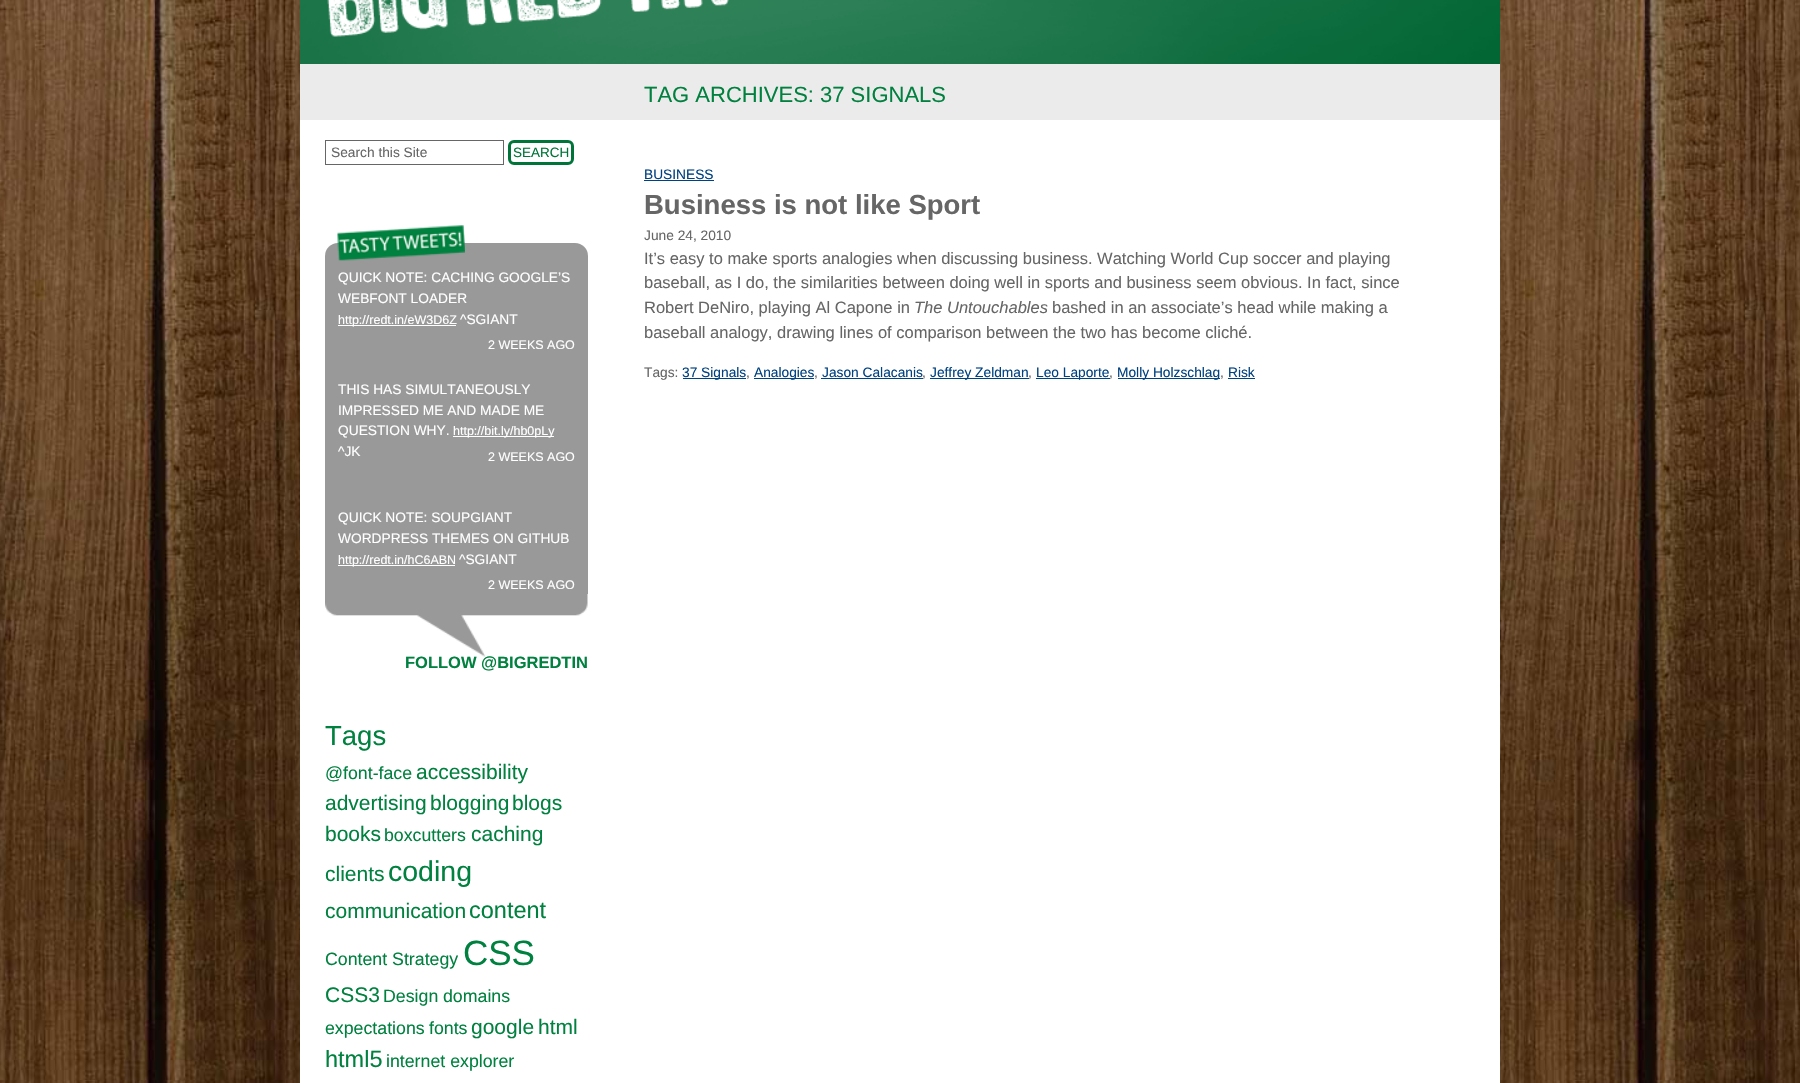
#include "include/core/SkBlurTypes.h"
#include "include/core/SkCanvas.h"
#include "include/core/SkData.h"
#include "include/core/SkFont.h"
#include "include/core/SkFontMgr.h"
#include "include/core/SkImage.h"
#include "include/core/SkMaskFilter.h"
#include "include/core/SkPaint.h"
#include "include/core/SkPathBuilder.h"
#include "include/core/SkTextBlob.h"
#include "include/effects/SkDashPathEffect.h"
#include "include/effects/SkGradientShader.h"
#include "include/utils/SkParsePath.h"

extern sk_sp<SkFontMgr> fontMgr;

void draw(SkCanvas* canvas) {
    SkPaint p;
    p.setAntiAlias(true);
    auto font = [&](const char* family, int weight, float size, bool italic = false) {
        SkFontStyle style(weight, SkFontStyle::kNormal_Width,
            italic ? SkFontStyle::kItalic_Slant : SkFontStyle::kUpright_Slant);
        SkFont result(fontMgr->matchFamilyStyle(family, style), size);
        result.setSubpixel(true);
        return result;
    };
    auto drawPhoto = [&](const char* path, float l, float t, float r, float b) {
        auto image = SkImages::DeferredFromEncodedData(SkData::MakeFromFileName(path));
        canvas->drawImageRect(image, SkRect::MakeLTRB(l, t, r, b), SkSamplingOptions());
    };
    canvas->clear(0xFFFFFFFF);
    drawPhoto("media/1.png", 0, 0, 1800, 1083);
    p.setColor(0xFF006432);
    canvas->drawRect(SkRect::MakeLTRB(300, 0, 1500, 64), p);
    drawPhoto("media/2.png", 300, 0, 1500, 64);
    drawPhoto("media/3.png", 327, 0, 729, 37);
    p.setColor(0xFFFFFFFF);
    canvas->drawRect(SkRect::MakeLTRB(300, 120, 1500, 1083), p);
    p.setColor(0xFFEBEBEB);
    canvas->drawRect(SkRect::MakeLTRB(300, 64, 1500, 120), p);
    p.setStyle(SkPaint::kStroke_Style);
    p.setStrokeWidth(1);
    p.setColor(0xFF666666);
    canvas->drawRect(SkRect::MakeLTRB(325.5f, 140.5f, 503.5f, 164.5f), p);
    auto font1 = font("Liberation Sans", 400, 13.75f);
    p.setStyle(SkPaint::kFill_Style);
    canvas->drawString("Search this Site", 331, 157, font1, p);
    p.setStyle(SkPaint::kStroke_Style);
    p.setStrokeWidth(3);
    p.setColor(0xFF007439);
    canvas->drawRoundRect(SkRect::MakeLTRB(509.5f, 141.5f, 572.5f, 163.5f), 4.5f, 4.5f, p);
    auto font2 = font("Liberation Sans", 400, 13.5f);
    p.setStyle(SkPaint::kFill_Style);
    canvas->drawString("SEARCH", 513, 157, font2, p);
    p.setColor(0xFF999999);
    canvas->drawRoundRect(SkRect::MakeLTRB(325, 243, 588, 675), 13, 13, p);
    drawPhoto("media/4.png", 337, 225, 465, 261);
    p.setColor(0xFFFFFFFF);
    canvas->drawString("QUICK NOTE: CACHING GOOGLE’S", 338, 282, font1, p);
    canvas->drawString("WEBFONT LOADER", 338, 303, font1, p);
    canvas->drawRect(SkRect::MakeLTRB(338, 325, 456, 326), p);
    auto font3 = font("Liberation Sans", 400, 12.5f);
    canvas->drawString("http://redt.in/eW3D6Z", 338, 324, font3, p);
    canvas->drawString("^SGIANT", 460, 324, font1, p);
    canvas->drawString("2 WEEKS AGO", 488, 349, font3, p);
    {
        const struct { const char* s; float x, y; } items[] = {
            {"THIS HAS SIMULTANEOUSLY", 338, 394},
            {"IMPRESSED ME AND MADE ME", 338, 415},
            {"QUESTION WHY.", 338, 435},
        };
        for (auto [s, x, y] : items) {
            canvas->drawString(s, x, y, font1, p);
        }
    }
    canvas->drawRect(SkRect::MakeLTRB(453, 436, 554, 437), p);
    canvas->drawString("http://bit.ly/hb0pLy", 453, 435, font3, p);
    canvas->drawString("^JK", 338, 456, font1, p);
    canvas->drawString("2 WEEKS AGO", 488, 461, font3, p);
    canvas->drawString("QUICK NOTE: SOUPGIANT", 338, 522, font1, p);
    canvas->drawString("WORDPRESS THEMES ON GITHUB", 338, 543, font1, p);
    canvas->drawRect(SkRect::MakeLTRB(338, 565, 455, 566), p);
    canvas->drawString("http://redt.in/hC6ABN", 338, 564, font3, p);
    canvas->drawString("^SGIANT", 459, 564, font1, p);
    canvas->drawString("2 WEEKS AGO", 488, 589, font3, p);
    canvas->drawRect(SkRect::MakeLTRB(325, 594, 588, 675), p);
    drawPhoto("media/5.png", 325, 594, 588, 657);
    auto font4 = font("Liberation Sans", 700, 16.5f);
    p.setColor(0xFF00813F);
    canvas->drawString("FOLLOW @BIGREDTIN", 405, 668, font4, p);
    auto font5 = font("Liberation Sans", 400, 27.5f);
    canvas->drawString("Tags", 325, 745, font5, p);
    auto font6 = font("Liberation Sans", 400, 17.75f);
    canvas->drawString("@font-face", 325, 779, font6, p);
    auto font7 = font("Liberation Sans", 400, 21);
    {
        const struct { const char* s; float x, y; } items[] = {
            {"accessibility", 416, 779},
            {"advertising", 325, 810},
            {"blogging", 430, 810},
            {"blogs", 512, 810},
            {"books", 325, 841},
        };
        for (auto [s, x, y] : items) {
            canvas->drawString(s, x, y, font7, p);
        }
    }
    canvas->drawString("boxcutters", 384, 841, font6, p);
    canvas->drawString("caching", 471, 841, font7, p);
    canvas->drawString("clients", 325, 881, font7, p);
    auto font8 = font("Liberation Sans", 400, 28.5f);
    canvas->drawString("coding", 388, 881, font8, p);
    canvas->drawString("communication", 325, 918, font7, p);
    auto font9 = font("Liberation Sans", 400, 23.5f);
    canvas->drawString("content", 469, 918, font9, p);
    canvas->drawString("Content Strategy", 325, 965, font6, p);
    auto font10 = font("Liberation Sans", 400, 35);
    canvas->drawString("CSS", 463, 965, font10, p);
    canvas->drawString("CSS3", 325, 1002, font7, p);
    {
        const struct { const char* s; float x, y; } items[] = {
            {"Design", 383, 1002},
            {"domains", 443, 1002},
            {"expectations", 325, 1034},
            {"fonts", 429, 1034},
        };
        for (auto [s, x, y] : items) {
            canvas->drawString(s, x, y, font6, p);
        }
    }
    canvas->drawString("google", 471, 1034, font7, p);
    canvas->drawString("html", 538, 1034, font7, p);
    canvas->drawString("html5", 325, 1067, font9, p);
    canvas->drawString("internet explorer", 386, 1067, font6, p);
    auto font11 = font("Liberation Sans", 400, 22);
    canvas->drawString("TAG ARCHIVES: 37 SIGNALS", 644, 102, font11, p);
    p.setColor(0xFF004280);
    canvas->drawString("BUSINESS", 644, 179, font1, p);
    canvas->drawRect(SkRect::MakeLTRB(644, 180, 714, 181), p);
    auto font12 = font("Liberation Sans", 700, 27.5f);
    p.setColor(0xFF666666);
    canvas->drawString("Business is not like Sport", 644, 214, font12, p);
    canvas->drawString("June 24, 2010", 644, 240, font1, p);
    auto font13 = font("Liberation Sans", 400, 16.5f);
    {
        const struct { const char* s; float x, y; } items[] = {
            {"It’s easy to make sports analogies when discussing business. Watching World Cup soccer and playing", 644, 264},
            {"baseball, as I do, the similarities between doing well in sports and business seem obvious. In fact, since", 644, 288},
            {"Robert DeNiro, playing Al Capone in", 644, 313},
        };
        for (auto [s, x, y] : items) {
            canvas->drawString(s, x, y, font13, p);
        }
    }
    auto font14 = font("Liberation Sans", 400, 16.5f, true);
    canvas->drawString("The Untouchables", 914, 313, font14, p);
    canvas->drawString("bashed in an associate’s head while making a", 1052, 313, font13, p);
    canvas->drawString("baseball analogy, drawing lines of comparison between the two has become cliché.", 644, 338, font13, p);
    canvas->drawString("Tags:", 644, 377, font1, p);
    p.setColor(0xFF004280);
    canvas->drawRect(SkRect::MakeLTRB(683, 378, 746, 379), p);
    canvas->drawString("37 Signals", 682, 377, font1, p);
    p.setColor(0xFF666666);
    canvas->drawString(",", 746, 377, font1, p);
    p.setColor(0xFF004280);
    canvas->drawRect(SkRect::MakeLTRB(754, 378, 814, 379), p);
    canvas->drawString("Analogies", 754, 377, font1, p);
    p.setColor(0xFF666666);
    canvas->drawString(",", 814, 377, font1, p);
    p.setColor(0xFF004280);
    canvas->drawString("Jason Calacanis", 822, 377, font1, p);
    canvas->drawRect(SkRect::MakeLTRB(821, 378, 923, 379), p);
    p.setColor(0xFF666666);
    canvas->drawString(",", 922, 377, font1, p);
    p.setColor(0xFF004280);
    canvas->drawRect(SkRect::MakeLTRB(930, 378, 1029, 379), p);
    canvas->drawString("Jeffrey Zeldman", 930, 377, font1, p);
    p.setColor(0xFF666666);
    canvas->drawString(",", 1028, 377, font1, p);
    p.setColor(0xFF004280);
    canvas->drawRect(SkRect::MakeLTRB(1036, 378, 1110, 379), p);
    canvas->drawString("Leo Laporte", 1036, 377, font1, p);
    p.setColor(0xFF666666);
    canvas->drawString(",", 1109, 377, font1, p);
    p.setColor(0xFF004280);
    canvas->drawRect(SkRect::MakeLTRB(1118, 378, 1220, 379), p);
    canvas->drawString("Molly Holzschlag", 1117, 377, font1, p);
    p.setColor(0xFF666666);
    canvas->drawString(",", 1220, 377, font1, p);
    p.setColor(0xFF004280);
    canvas->drawString("Risk", 1228, 377, font1, p);
    canvas->drawRect(SkRect::MakeLTRB(1228, 378, 1255, 379), p);
}
